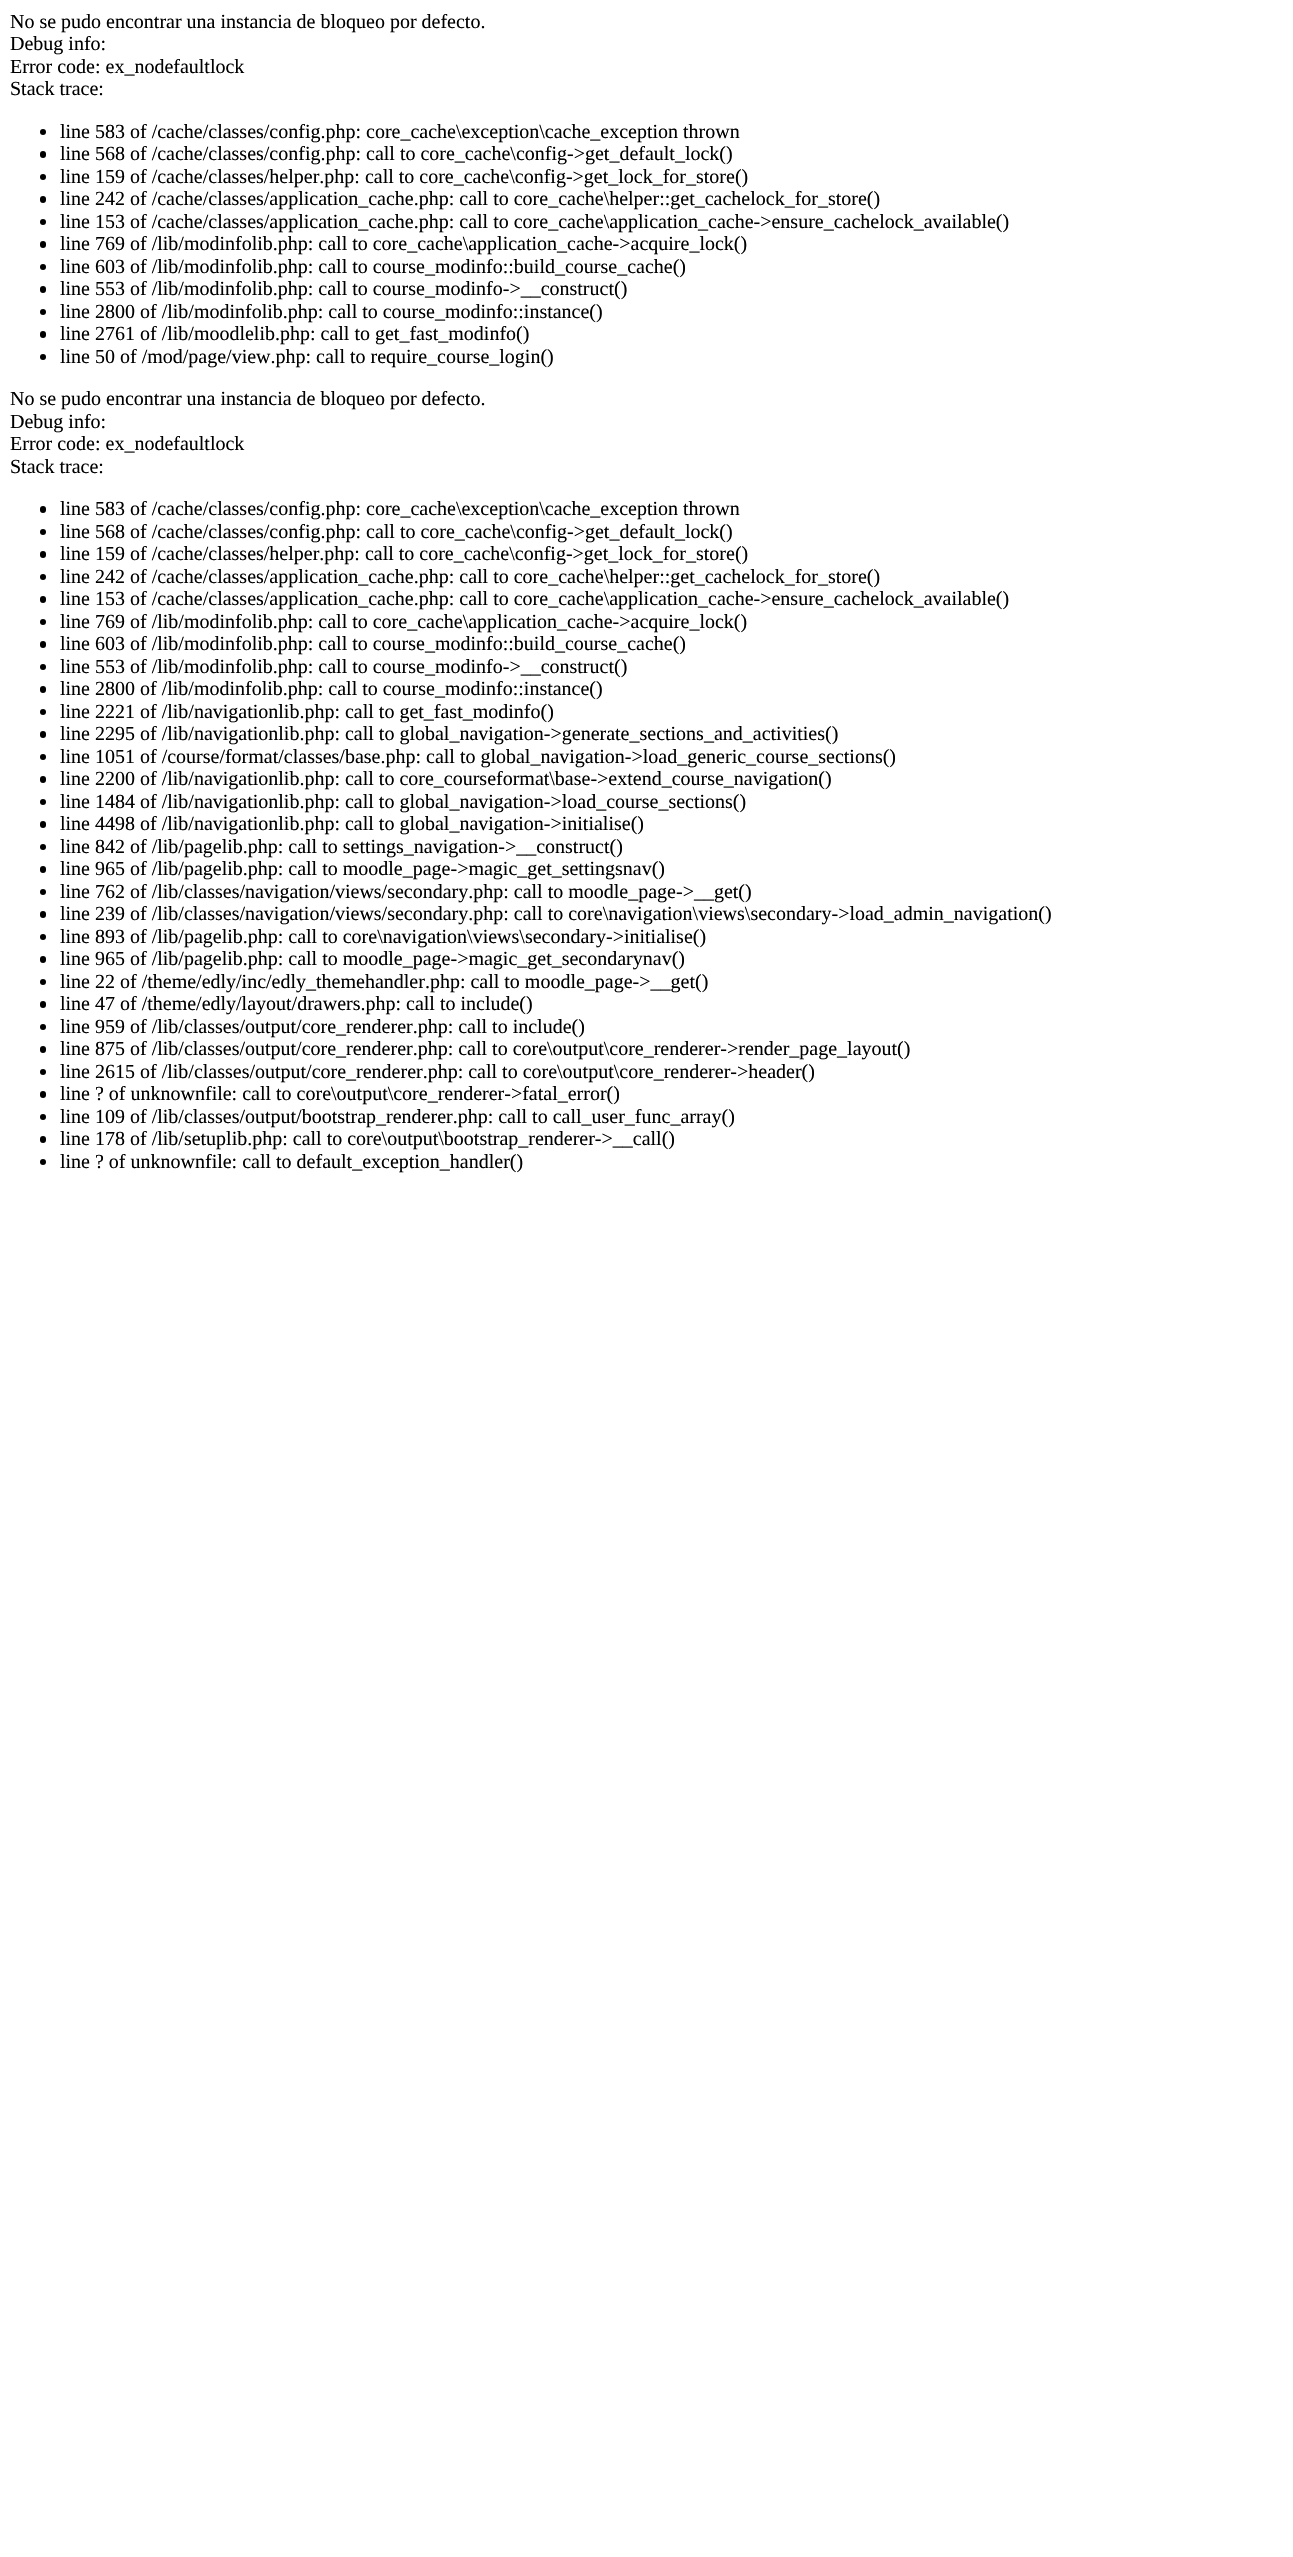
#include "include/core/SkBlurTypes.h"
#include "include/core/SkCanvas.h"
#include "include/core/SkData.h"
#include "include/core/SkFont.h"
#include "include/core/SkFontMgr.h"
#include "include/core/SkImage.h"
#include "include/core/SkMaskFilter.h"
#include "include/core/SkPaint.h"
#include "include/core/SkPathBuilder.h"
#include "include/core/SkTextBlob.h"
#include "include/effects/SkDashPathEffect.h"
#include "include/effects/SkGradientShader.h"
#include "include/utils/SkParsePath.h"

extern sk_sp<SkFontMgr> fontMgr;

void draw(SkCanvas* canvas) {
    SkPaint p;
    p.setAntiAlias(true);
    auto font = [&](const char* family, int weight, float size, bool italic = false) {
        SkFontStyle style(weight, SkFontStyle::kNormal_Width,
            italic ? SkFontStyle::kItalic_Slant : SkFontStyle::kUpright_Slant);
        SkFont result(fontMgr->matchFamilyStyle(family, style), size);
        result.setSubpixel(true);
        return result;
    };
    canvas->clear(0xFFFFFFFF);
    auto font1 = font("Liberation Serif", 400, 20);
    p.setColor(0xFF000000);
    {
        const struct { const char* s; float x, y; } items[] = {
            {"No se pudo encontrar una instancia de bloqueo por defecto.", 10, 28},
            {"Debug info:", 10, 50},
            {"Error code: ex_nodefaultlock", 10, 73},
            {"Stack trace:", 10, 95},
        };
        for (auto [s, x, y] : items) {
            canvas->drawString(s, x, y, font1, p);
        }
    }
    canvas->drawCircle(43, 132, 3, p);
    canvas->drawString("line 583 of /cache/classes/config.php: core_cache\\exception\\cache_exception thrown", 60, 138, font1, p);
    canvas->drawRoundRect(SkRect::MakeLTRB(40, 151, 46, 158), 3, 3, p);
    canvas->drawString("line 568 of /cache/classes/config.php: call to core_cache\\config->get_default_lock()", 60, 160, font1, p);
    canvas->drawCircle(43, 177, 3, p);
    canvas->drawString("line 159 of /cache/classes/helper.php: call to core_cache\\config->get_lock_for_store()", 60, 183, font1, p);
    canvas->drawRoundRect(SkRect::MakeLTRB(40, 196, 46, 203), 3, 3, p);
    canvas->drawString("line 242 of /cache/classes/application_cache.php: call to core_cache\\helper::get_cachelock_for_store()", 60, 205, font1, p);
    canvas->drawCircle(43, 222, 3, p);
    canvas->drawString("line 153 of /cache/classes/application_cache.php: call to core_cache\\application_cache->ensure_cachelock_available()", 60, 228, font1, p);
    canvas->drawRoundRect(SkRect::MakeLTRB(40, 241, 46, 248), 3, 3, p);
    canvas->drawString("line 769 of /lib/modinfolib.php: call to core_cache\\application_cache->acquire_lock()", 60, 250, font1, p);
    canvas->drawCircle(43, 267, 3, p);
    canvas->drawString("line 603 of /lib/modinfolib.php: call to course_modinfo::build_course_cache()", 60, 273, font1, p);
    canvas->drawRoundRect(SkRect::MakeLTRB(40, 286, 46, 293), 3, 3, p);
    canvas->drawString("line 553 of /lib/modinfolib.php: call to course_modinfo->__construct()", 60, 295, font1, p);
    canvas->drawCircle(43, 312, 3, p);
    canvas->drawString("line 2800 of /lib/modinfolib.php: call to course_modinfo::instance()", 60, 318, font1, p);
    canvas->drawRoundRect(SkRect::MakeLTRB(40, 331, 46, 338), 3, 3, p);
    canvas->drawString("line 2761 of /lib/moodlelib.php: call to get_fast_modinfo()", 60, 340, font1, p);
    canvas->drawCircle(43, 357, 3, p);
    {
        const struct { const char* s; float x, y; } items[] = {
            {"line 50 of /mod/page/view.php: call to require_course_login()", 60, 363},
            {"No se pudo encontrar una instancia de bloqueo por defecto.", 10, 405},
            {"Debug info:", 10, 428},
            {"Error code: ex_nodefaultlock", 10, 450},
            {"Stack trace:", 10, 473},
        };
        for (auto [s, x, y] : items) {
            canvas->drawString(s, x, y, font1, p);
        }
    }
    canvas->drawRoundRect(SkRect::MakeLTRB(40, 506, 46, 513), 3, 3, p);
    canvas->drawString("line 583 of /cache/classes/config.php: core_cache\\exception\\cache_exception thrown", 60, 515, font1, p);
    canvas->drawCircle(43, 532, 3, p);
    canvas->drawString("line 568 of /cache/classes/config.php: call to core_cache\\config->get_default_lock()", 60, 538, font1, p);
    canvas->drawRoundRect(SkRect::MakeLTRB(40, 551, 46, 558), 3, 3, p);
    canvas->drawString("line 159 of /cache/classes/helper.php: call to core_cache\\config->get_lock_for_store()", 60, 560, font1, p);
    canvas->drawCircle(43, 577, 3, p);
    canvas->drawString("line 242 of /cache/classes/application_cache.php: call to core_cache\\helper::get_cachelock_for_store()", 60, 583, font1, p);
    canvas->drawRoundRect(SkRect::MakeLTRB(40, 596, 46, 603), 3, 3, p);
    canvas->drawString("line 153 of /cache/classes/application_cache.php: call to core_cache\\application_cache->ensure_cachelock_available()", 60, 605, font1, p);
    canvas->drawCircle(43, 622, 3, p);
    canvas->drawString("line 769 of /lib/modinfolib.php: call to core_cache\\application_cache->acquire_lock()", 60, 628, font1, p);
    canvas->drawRoundRect(SkRect::MakeLTRB(40, 641, 46, 648), 3, 3, p);
    canvas->drawString("line 603 of /lib/modinfolib.php: call to course_modinfo::build_course_cache()", 60, 650, font1, p);
    canvas->drawCircle(43, 667, 3, p);
    canvas->drawString("line 553 of /lib/modinfolib.php: call to course_modinfo->__construct()", 60, 673, font1, p);
    canvas->drawRoundRect(SkRect::MakeLTRB(40, 686, 46, 693), 3, 3, p);
    canvas->drawString("line 2800 of /lib/modinfolib.php: call to course_modinfo::instance()", 60, 695, font1, p);
    canvas->drawCircle(43, 712, 3, p);
    canvas->drawString("line 2221 of /lib/navigationlib.php: call to get_fast_modinfo()", 60, 718, font1, p);
    canvas->drawRoundRect(SkRect::MakeLTRB(40, 731, 46, 738), 3, 3, p);
    canvas->drawString("line 2295 of /lib/navigationlib.php: call to global_navigation->generate_sections_and_activities()", 60, 740, font1, p);
    canvas->drawCircle(43, 757, 3, p);
    canvas->drawString("line 1051 of /course/format/classes/base.php: call to global_navigation->load_generic_course_sections()", 60, 763, font1, p);
    canvas->drawRoundRect(SkRect::MakeLTRB(40, 776, 46, 783), 3, 3, p);
    canvas->drawString("line 2200 of /lib/navigationlib.php: call to core_courseformat\\base->extend_course_navigation()", 60, 785, font1, p);
    canvas->drawCircle(43, 802, 3, p);
    canvas->drawString("line 1484 of /lib/navigationlib.php: call to global_navigation->load_course_sections()", 60, 808, font1, p);
    canvas->drawRoundRect(SkRect::MakeLTRB(40, 821, 46, 828), 3, 3, p);
    canvas->drawString("line 4498 of /lib/navigationlib.php: call to global_navigation->initialise()", 60, 830, font1, p);
    canvas->drawCircle(43, 847, 3, p);
    canvas->drawString("line 842 of /lib/pagelib.php: call to settings_navigation->__construct()", 60, 853, font1, p);
    canvas->drawRoundRect(SkRect::MakeLTRB(40, 866, 46, 873), 3, 3, p);
    canvas->drawString("line 965 of /lib/pagelib.php: call to moodle_page->magic_get_settingsnav()", 60, 875, font1, p);
    canvas->drawCircle(43, 892, 3, p);
    canvas->drawString("line 762 of /lib/classes/navigation/views/secondary.php: call to moodle_page->__get()", 60, 898, font1, p);
    canvas->drawRoundRect(SkRect::MakeLTRB(40, 911, 46, 918), 3, 3, p);
    canvas->drawString("line 239 of /lib/classes/navigation/views/secondary.php: call to core\\navigation\\views\\secondary->load_admin_navigation()", 60, 920, font1, p);
    canvas->drawCircle(43, 937, 3, p);
    canvas->drawString("line 893 of /lib/pagelib.php: call to core\\navigation\\views\\secondary->initialise()", 60, 943, font1, p);
    canvas->drawRoundRect(SkRect::MakeLTRB(40, 956, 46, 963), 3, 3, p);
    canvas->drawString("line 965 of /lib/pagelib.php: call to moodle_page->magic_get_secondarynav()", 60, 965, font1, p);
    canvas->drawCircle(43, 982, 3, p);
    canvas->drawString("line 22 of /theme/edly/inc/edly_themehandler.php: call to moodle_page->__get()", 60, 988, font1, p);
    canvas->drawRoundRect(SkRect::MakeLTRB(40, 1001, 46, 1008), 3, 3, p);
    canvas->drawString("line 47 of /theme/edly/layout/drawers.php: call to include()", 60, 1010, font1, p);
    canvas->drawCircle(43, 1027, 3, p);
    canvas->drawString("line 959 of /lib/classes/output/core_renderer.php: call to include()", 60, 1033, font1, p);
    canvas->drawRoundRect(SkRect::MakeLTRB(40, 1046, 46, 1053), 3, 3, p);
    canvas->drawString("line 875 of /lib/classes/output/core_renderer.php: call to core\\output\\core_renderer->render_page_layout()", 60, 1055, font1, p);
    canvas->drawCircle(43, 1072, 3, p);
    canvas->drawString("line 2615 of /lib/classes/output/core_renderer.php: call to core\\output\\core_renderer->header()", 60, 1078, font1, p);
    canvas->drawRoundRect(SkRect::MakeLTRB(40, 1091, 46, 1098), 3, 3, p);
    canvas->drawString("line ? of unknownfile: call to core\\output\\core_renderer->fatal_error()", 60, 1100, font1, p);
    canvas->drawCircle(43, 1117, 3, p);
    canvas->drawString("line 109 of /lib/classes/output/bootstrap_renderer.php: call to call_user_func_array()", 60, 1123, font1, p);
    canvas->drawRoundRect(SkRect::MakeLTRB(40, 1136, 46, 1143), 3, 3, p);
    canvas->drawString("line 178 of /lib/setuplib.php: call to core\\output\\bootstrap_renderer->__call()", 60, 1145, font1, p);
    canvas->drawCircle(43, 1162, 3, p);
    canvas->drawString("line ? of unknownfile: call to default_exception_handler()", 60, 1168, font1, p);
}
